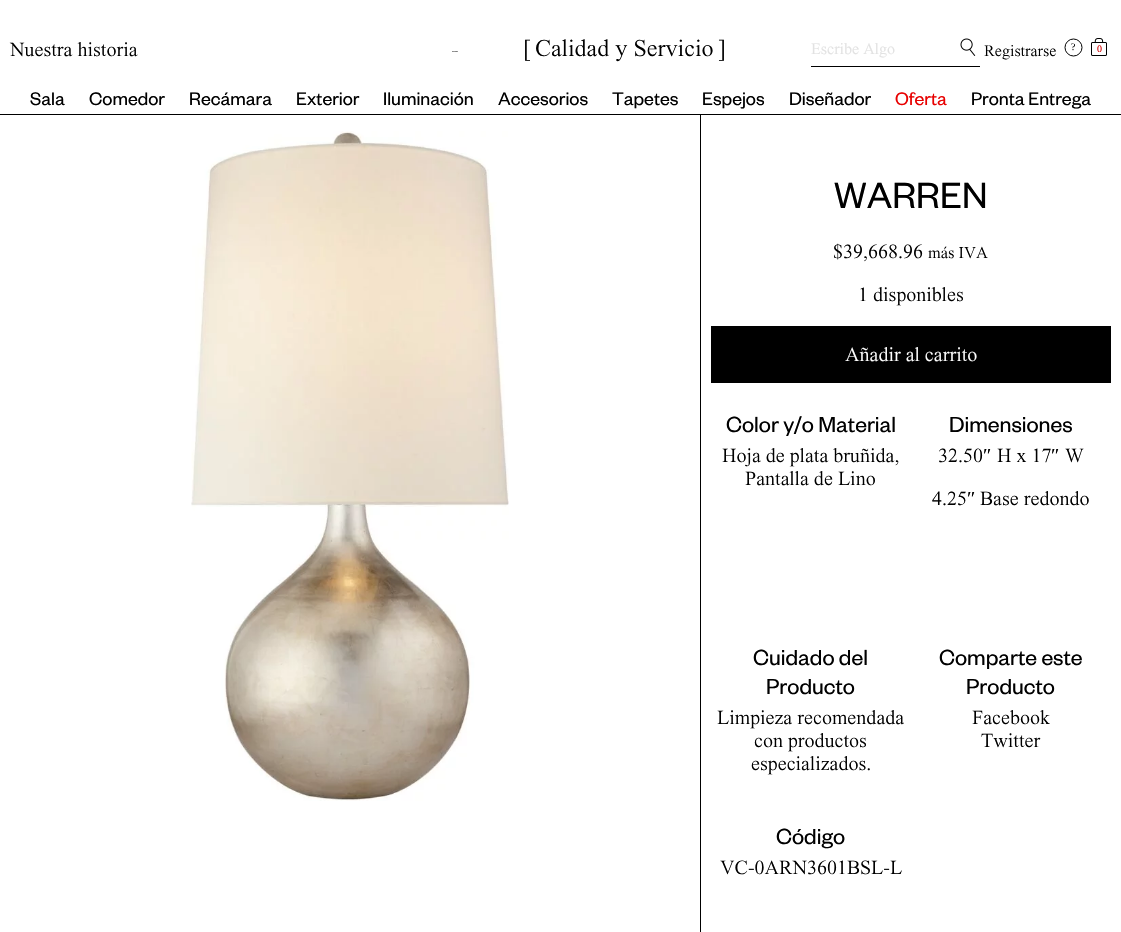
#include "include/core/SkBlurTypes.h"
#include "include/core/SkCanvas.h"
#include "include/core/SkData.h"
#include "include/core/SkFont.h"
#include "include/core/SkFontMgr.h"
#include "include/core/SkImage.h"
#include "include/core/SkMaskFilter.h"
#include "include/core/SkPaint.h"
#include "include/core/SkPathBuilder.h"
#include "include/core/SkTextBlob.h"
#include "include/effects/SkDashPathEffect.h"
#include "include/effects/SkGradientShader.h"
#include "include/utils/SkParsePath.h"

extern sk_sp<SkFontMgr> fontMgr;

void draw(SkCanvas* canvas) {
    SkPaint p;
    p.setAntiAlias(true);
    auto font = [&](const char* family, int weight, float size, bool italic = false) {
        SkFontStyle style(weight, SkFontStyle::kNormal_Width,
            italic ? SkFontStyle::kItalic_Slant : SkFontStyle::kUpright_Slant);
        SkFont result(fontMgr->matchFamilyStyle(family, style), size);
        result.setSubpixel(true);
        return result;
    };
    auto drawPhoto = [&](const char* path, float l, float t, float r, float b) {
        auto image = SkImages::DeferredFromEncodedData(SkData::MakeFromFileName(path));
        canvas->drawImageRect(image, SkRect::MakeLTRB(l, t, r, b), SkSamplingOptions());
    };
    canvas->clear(0xFFFFFFFF);
    p.setColor(0xFF000000);
    canvas->drawRect(SkRect::MakeLTRB(0, 114, 1121, 115), p);
    auto font1 = font("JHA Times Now", 300, 20);
    canvas->drawString("Nuestra historia", 10, 56, font1, p);
    drawPhoto("media/1.png", 452, 51, 458, 52);
    auto font2 = font("JHA Times Now", 300, 24);
    {
        const struct { const char* s; float x, y; } items[] = {
            {"[", 523, 56},
            {"Calidad y Servicio", 535, 56},
            {"]", 718, 56},
        };
        for (auto [s, x, y] : items) {
            canvas->drawString(s, x, y, font2, p);
        }
    }
    canvas->drawRect(SkRect::MakeLTRB(811, 66, 980, 67), p);
    auto font3 = font("JHA Times Now", 300, 16);
    p.setColor(0xFFE2E2E2);
    canvas->drawString("Escribe Algo", 811, 54, font3, p);
    drawPhoto("media/2.png", 960, 38, 976, 56);
    p.setColor(0xFF000000);
    canvas->drawString("Registrarse", 984, 56, font3, p);
    p.setStyle(SkPaint::kStroke_Style);
    p.setStrokeWidth(1);
    canvas->drawCircle(1073.5f, 47.5f, 8.5f, p);
    auto font4 = font("Liberation Serif", 400, 10);
    p.setStyle(SkPaint::kFill_Style);
    canvas->drawString("?", 1071, 50, font4, p);
    drawPhoto("media/3.png", 1091, 38, 1107, 56);
    p.setColor(0xFFD10000);
    canvas->drawString("0", 1097, 52, font4, p);
    auto font5 = font("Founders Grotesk", 400, 20);
    p.setColor(0xFF000000);
    {
        const struct { const char* s; float x, y; } items[] = {
            {"Sala", 30, 105},
            {"Comedor", 89, 105},
            {"Recámara", 189, 105},
            {"Exterior", 296, 105},
            {"Iluminación", 383, 105},
            {"Accesorios", 498, 105},
            {"Tapetes", 612, 105},
            {"Espejos", 702, 105},
            {"Diseñador", 789, 105},
        };
        for (auto [s, x, y] : items) {
            canvas->drawString(s, x, y, font5, p);
        }
    }
    p.setColor(0xFFE80101);
    canvas->drawString("Oferta", 895, 105, font5, p);
    p.setColor(0xFF000000);
    canvas->drawString("Pronta Entrega", 971, 105, font5, p);
    canvas->drawRect(SkRect::MakeLTRB(700, 115, 701, 932), p);
    drawPhoto("media/4.png", 191, 131, 509, 801);
    auto font6 = font("Founders Grotesk", 400, 40);
    canvas->drawString("WARREN", 834, 208, font6, p);
    canvas->drawString("$39,668.96", 833, 258, font1, p);
    auto font7 = font("JHA Times Now", 300, 16.5f);
    canvas->drawString("más IVA", 928, 258, font7, p);
    canvas->drawString("1 disponibles", 858, 301, font1, p);
    canvas->drawRect(SkRect::MakeLTRB(711, 326, 1111, 383), p);
    p.setColor(0xFFFFFFFF);
    canvas->drawString("Añadir al carrito", 845, 361, font1, p);
    auto font8 = font("Founders Grotesk", 400, 24);
    p.setColor(0xFF000000);
    canvas->drawString("Color y/o Material", 726, 432, font8, p);
    canvas->drawString("Hoja de plata bruñida,", 722, 462, font1, p);
    canvas->drawString("Pantalla de Lino", 745, 485, font1, p);
    canvas->drawString("Dimensiones", 949, 432, font8, p);
    canvas->drawString("32.50", 938, 462, font1, p);
    auto font9 = font("Liberation Serif", 400, 20);
    canvas->drawString("″", 983, 462, font9, p);
    canvas->drawString("H x 17", 997, 462, font1, p);
    canvas->drawString("″", 1051, 462, font9, p);
    canvas->drawString("W", 1065, 462, font1, p);
    canvas->drawString("4.25", 932, 505, font1, p);
    canvas->drawString("″", 967, 505, font9, p);
    canvas->drawString("Base redondo", 980, 505, font1, p);
    canvas->drawString("Cuidado del", 753, 665, font8, p);
    canvas->drawString("Producto", 766, 694, font8, p);
    {
        const struct { const char* s; float x, y; } items[] = {
            {"Limpieza recomendada", 717, 724},
            {"con productos", 754, 747},
            {"especializados.", 751, 770},
        };
        for (auto [s, x, y] : items) {
            canvas->drawString(s, x, y, font1, p);
        }
    }
    canvas->drawString("Comparte este", 939, 665, font8, p);
    canvas->drawString("Producto", 966, 694, font8, p);
    canvas->drawString("Facebook", 972, 724, font1, p);
    canvas->drawString("Twitter", 981, 747, font1, p);
    canvas->drawString("Código", 776, 844, font8, p);
    canvas->drawString("VC-0ARN3601BSL-L", 720, 874, font1, p);
}
